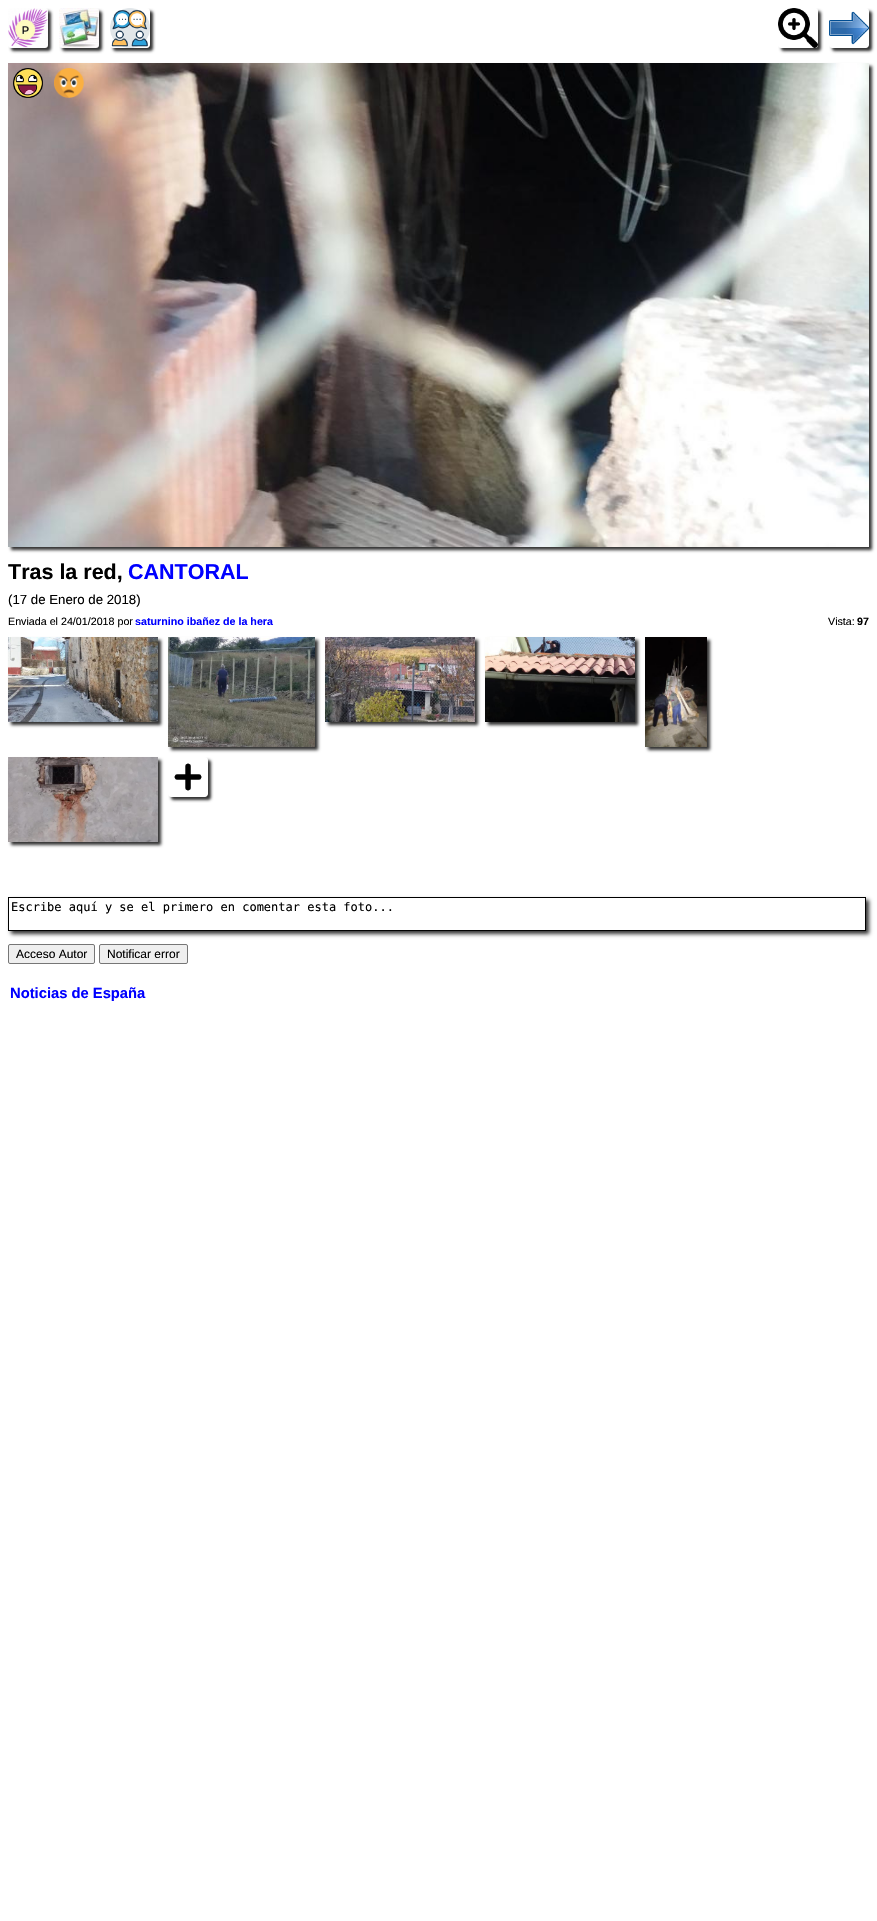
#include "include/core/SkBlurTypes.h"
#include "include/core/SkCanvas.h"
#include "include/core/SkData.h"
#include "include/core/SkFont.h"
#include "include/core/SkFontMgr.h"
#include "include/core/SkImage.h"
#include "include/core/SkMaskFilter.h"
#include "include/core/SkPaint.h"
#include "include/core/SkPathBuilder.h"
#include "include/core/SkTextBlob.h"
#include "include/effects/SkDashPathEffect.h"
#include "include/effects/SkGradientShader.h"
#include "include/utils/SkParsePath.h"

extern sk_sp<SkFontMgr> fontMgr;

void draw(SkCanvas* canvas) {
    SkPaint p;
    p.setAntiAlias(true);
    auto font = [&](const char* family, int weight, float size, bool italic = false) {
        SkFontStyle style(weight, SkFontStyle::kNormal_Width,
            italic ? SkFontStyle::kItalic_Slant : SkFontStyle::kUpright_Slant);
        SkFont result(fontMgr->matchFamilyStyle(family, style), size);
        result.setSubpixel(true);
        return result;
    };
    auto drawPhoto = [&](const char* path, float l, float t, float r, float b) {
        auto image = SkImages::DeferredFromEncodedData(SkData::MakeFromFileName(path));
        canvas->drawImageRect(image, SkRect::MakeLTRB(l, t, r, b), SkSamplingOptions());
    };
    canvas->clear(0xFFFFFFFF);
    p.setColor(0xFF333333);
    p.setMaskFilter(SkMaskFilter::MakeBlur(kNormal_SkBlurStyle, 1.5f));
    canvas->drawRoundRect(SkRect::MakeLTRB(11, 11, 51, 51), 3, 3, p);
    p.setMaskFilter(nullptr);
    p.setMaskFilter(SkMaskFilter::MakeBlur(kNormal_SkBlurStyle, 1.5f));
    canvas->drawRoundRect(SkRect::MakeLTRB(62, 11, 102, 51), 3, 3, p);
    p.setMaskFilter(nullptr);
    canvas->save();
    canvas->clipPath(SkPathBuilder(SkPathFillType::kEvenOdd).moveTo(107, 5).lineTo(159, 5).lineTo(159, 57).lineTo(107, 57).close().moveTo(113, 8).lineTo(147, 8).cubicTo(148.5f, 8, 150, 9.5f, 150, 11).lineTo(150, 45).cubicTo(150, 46.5f, 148.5f, 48, 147, 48).lineTo(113, 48).cubicTo(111.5f, 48, 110, 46.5f, 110, 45).lineTo(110, 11).cubicTo(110, 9.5f, 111.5f, 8, 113, 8).close().detach(), true);
    p.setMaskFilter(SkMaskFilter::MakeBlur(kNormal_SkBlurStyle, 1.5f));
    canvas->drawRoundRect(SkRect::MakeLTRB(113, 11, 153, 51), 3, 3, p);
    p.setMaskFilter(nullptr);
    canvas->restore();
    drawPhoto("media/1.png", 8, 8, 48, 48);
    drawPhoto("media/2.png", 59, 8, 99, 48);
    drawPhoto("media/3.png", 110, 8, 150, 48);
    p.setMaskFilter(SkMaskFilter::MakeBlur(kNormal_SkBlurStyle, 1.5f));
    canvas->drawRoundRect(SkRect::MakeLTRB(781, 11, 821, 51), 3, 3, p);
    p.setMaskFilter(nullptr);
    canvas->save();
    canvas->clipPath(SkPathBuilder(SkPathFillType::kEvenOdd).moveTo(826, 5).lineTo(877, 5).lineTo(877, 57).lineTo(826, 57).close().moveTo(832, 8).lineTo(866, 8).cubicTo(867.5f, 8, 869, 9.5f, 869, 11).lineTo(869, 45).cubicTo(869, 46.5f, 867.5f, 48, 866, 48).lineTo(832, 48).cubicTo(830.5f, 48, 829, 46.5f, 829, 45).lineTo(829, 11).cubicTo(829, 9.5f, 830.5f, 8, 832, 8).close().detach(), true);
    p.setMaskFilter(SkMaskFilter::MakeBlur(kNormal_SkBlurStyle, 1.5f));
    canvas->drawRoundRect(SkRect::MakeLTRB(832, 11, 872, 51), 3, 3, p);
    p.setMaskFilter(nullptr);
    canvas->restore();
    drawPhoto("media/4.png", 778, 8, 818, 48);
    drawPhoto("media/5.png", 829, 11, 869, 45);
    p.setMaskFilter(SkMaskFilter::MakeBlur(kNormal_SkBlurStyle, 1.5f));
    canvas->drawRect(SkRect::MakeLTRB(11, 66, 872, 550), p);
    p.setMaskFilter(nullptr);
    drawPhoto("media/6.png", 8, 63, 869, 547);
    drawPhoto("media/7.png", 13, 68, 43, 98);
    drawPhoto("media/8.png", 54, 68, 84, 98);
    auto font1 = font("Liberation Sans", 700, 21.5f);
    p.setColor(0xFF000000);
    canvas->drawString("Tras la red,", 8, 579, font1, p);
    p.setColor(0xFF0000FF);
    canvas->drawString("CANTORAL", 128, 579, font1, p);
    auto font2 = font("Liberation Sans", 400, 13.25f);
    p.setColor(0xFF000000);
    canvas->drawString("(17 de Enero de 2018)", 8, 604, font2, p);
    auto font3 = font("Liberation Sans", 400, 10.7f);
    canvas->drawString("Enviada el 24/01/2018 por", 8, 625, font3, p);
    auto font4 = font("Liberation Sans", 700, 10.7f);
    p.setColor(0xFF0000FF);
    canvas->drawString("saturnino ibañez de la hera", 135, 625, font4, p);
    p.setColor(0xFF000000);
    canvas->drawString("Vista:", 828, 625, font3, p);
    canvas->drawString("97", 857, 625, font4, p);
    p.setColor(0xFF333333);
    p.setMaskFilter(SkMaskFilter::MakeBlur(kNormal_SkBlurStyle, 1.5f));
    canvas->drawRect(SkRect::MakeLTRB(11, 640, 161, 725), p);
    p.setMaskFilter(nullptr);
    drawPhoto("media/9.png", 8, 637, 158, 722);
    p.setMaskFilter(SkMaskFilter::MakeBlur(kNormal_SkBlurStyle, 1.5f));
    canvas->drawRect(SkRect::MakeLTRB(171, 640, 318, 750), p);
    p.setMaskFilter(nullptr);
    drawPhoto("media/10.png", 168, 637, 315, 747);
    p.setMaskFilter(SkMaskFilter::MakeBlur(kNormal_SkBlurStyle, 1.5f));
    canvas->drawRect(SkRect::MakeLTRB(328, 640, 478, 725), p);
    p.setMaskFilter(nullptr);
    drawPhoto("media/11.png", 325, 637, 475, 722);
    p.setMaskFilter(SkMaskFilter::MakeBlur(kNormal_SkBlurStyle, 1.5f));
    canvas->drawRect(SkRect::MakeLTRB(488, 640, 638, 725), p);
    p.setMaskFilter(nullptr);
    drawPhoto("media/12.png", 485, 637, 635, 722);
    p.setMaskFilter(SkMaskFilter::MakeBlur(kNormal_SkBlurStyle, 1.5f));
    canvas->drawRect(SkRect::MakeLTRB(648, 640, 710, 750), p);
    p.setMaskFilter(nullptr);
    drawPhoto("media/13.png", 645, 637, 707, 747);
    p.setMaskFilter(SkMaskFilter::MakeBlur(kNormal_SkBlurStyle, 1.5f));
    canvas->drawRect(SkRect::MakeLTRB(11, 760, 161, 845), p);
    p.setMaskFilter(nullptr);
    drawPhoto("media/14.png", 8, 757, 158, 842);
    canvas->save();
    canvas->clipPath(SkPathBuilder(SkPathFillType::kEvenOdd).moveTo(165, 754).lineTo(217, 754).lineTo(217, 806).lineTo(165, 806).close().moveTo(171, 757).lineTo(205, 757).cubicTo(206.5f, 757, 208, 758.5f, 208, 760).lineTo(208, 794).cubicTo(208, 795.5f, 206.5f, 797, 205, 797).lineTo(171, 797).cubicTo(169.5f, 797, 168, 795.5f, 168, 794).lineTo(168, 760).cubicTo(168, 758.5f, 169.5f, 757, 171, 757).close().detach(), true);
    p.setMaskFilter(SkMaskFilter::MakeBlur(kNormal_SkBlurStyle, 1.5f));
    canvas->drawRoundRect(SkRect::MakeLTRB(171, 760, 211, 800), 3, 3, p);
    p.setMaskFilter(nullptr);
    canvas->restore();
    drawPhoto("media/15.png", 174, 763, 202, 791);
    canvas->save();
    canvas->clipPath(SkPathBuilder(SkPathFillType::kEvenOdd).moveTo(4, 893).lineTo(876, 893).lineTo(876, 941).lineTo(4, 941).close().moveTo(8, 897).lineTo(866, 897).lineTo(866, 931).lineTo(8, 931).close().detach(), true);
    p.setMaskFilter(SkMaskFilter::MakeBlur(kNormal_SkBlurStyle, 2));
    canvas->drawRect(SkRect::MakeLTRB(11, 900, 869, 934), p);
    p.setMaskFilter(nullptr);
    canvas->restore();
    p.setStyle(SkPaint::kStroke_Style);
    p.setStrokeWidth(1);
    p.setColor(0xFF000000);
    canvas->drawRect(SkRect::MakeLTRB(8.5f, 897.5f, 865.5f, 930.5f), p);
    auto font5 = font("DejaVu Sans Mono", 400, 12);
    p.setStyle(SkPaint::kFill_Style);
    canvas->drawString("Escribe aquí y se el primero en comentar esta foto...", 11, 911, font5, p);
    p.setColor(0xFFEFEFEF);
    canvas->drawRoundRect(SkRect::MakeLTRB(8.5f, 944.5f, 94.5f, 963.5f), 1.5f, 1.5f, p);
    p.setStyle(SkPaint::kStroke_Style);
    p.setColor(0xFF767676);
    canvas->drawRoundRect(SkRect::MakeLTRB(8.5f, 944.5f, 94.5f, 963.5f), 1.5f, 1.5f, p);
    auto font6 = font("Liberation Sans", 400, 12);
    p.setStyle(SkPaint::kFill_Style);
    p.setColor(0xFF000000);
    canvas->drawString("Acceso Autor", 16, 958, font6, p);
    p.setColor(0xFFEFEFEF);
    canvas->drawRoundRect(SkRect::MakeLTRB(99.5f, 944.5f, 187.5f, 963.5f), 1.5f, 1.5f, p);
    p.setStyle(SkPaint::kStroke_Style);
    p.setColor(0xFF767676);
    canvas->drawRoundRect(SkRect::MakeLTRB(99.5f, 944.5f, 187.5f, 963.5f), 1.5f, 1.5f, p);
    p.setStyle(SkPaint::kFill_Style);
    p.setColor(0xFF000000);
    canvas->drawString("Notificar error", 107, 958, font6, p);
    auto font7 = font("Liberation Sans", 700, 14.75f);
    p.setColor(0xFF0000FF);
    canvas->drawString("Noticias de España", 10, 998, font7, p);
}
